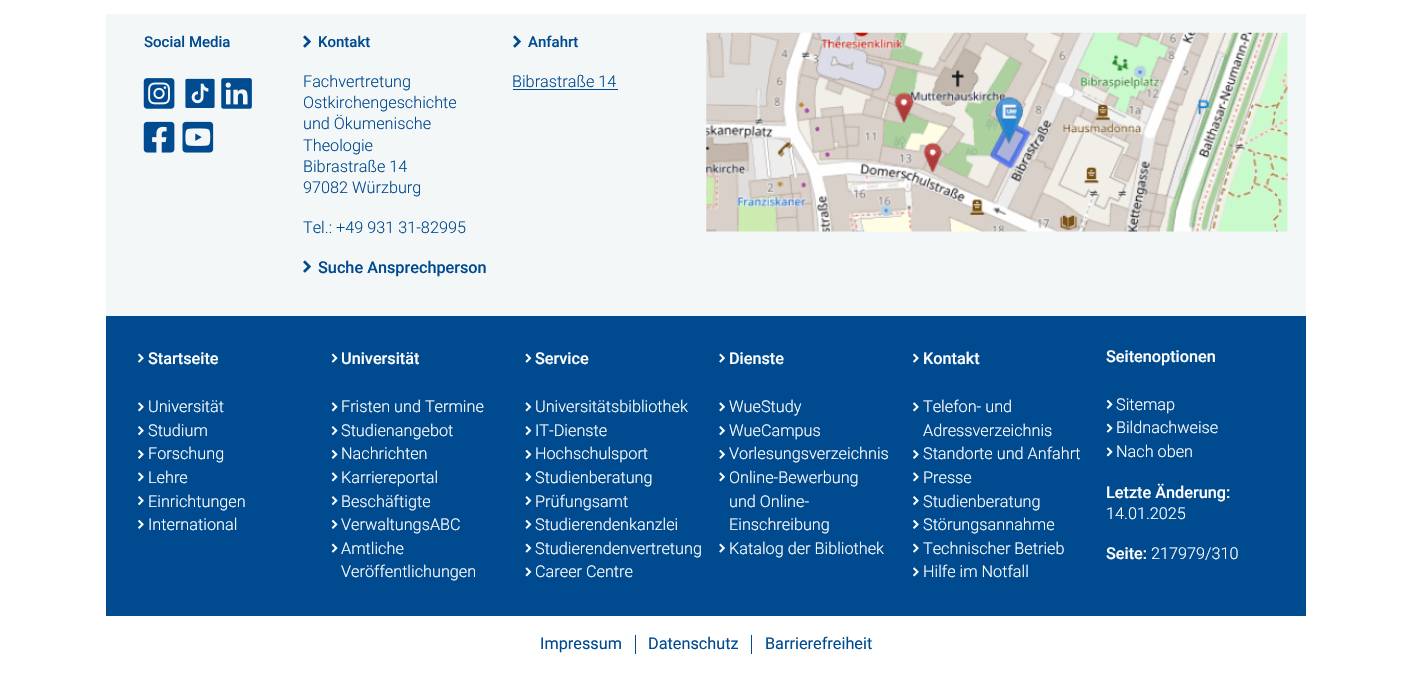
#include "include/core/SkBlurTypes.h"
#include "include/core/SkCanvas.h"
#include "include/core/SkData.h"
#include "include/core/SkFont.h"
#include "include/core/SkFontMgr.h"
#include "include/core/SkImage.h"
#include "include/core/SkMaskFilter.h"
#include "include/core/SkPaint.h"
#include "include/core/SkPathBuilder.h"
#include "include/core/SkTextBlob.h"
#include "include/effects/SkDashPathEffect.h"
#include "include/effects/SkGradientShader.h"
#include "include/utils/SkParsePath.h"

extern sk_sp<SkFontMgr> fontMgr;

void draw(SkCanvas* canvas) {
    SkPaint p;
    p.setAntiAlias(true);
    auto font = [&](const char* family, int weight, float size, bool italic = false) {
        SkFontStyle style(weight, SkFontStyle::kNormal_Width,
            italic ? SkFontStyle::kItalic_Slant : SkFontStyle::kUpright_Slant);
        SkFont result(fontMgr->matchFamilyStyle(family, style), size);
        result.setSubpixel(true);
        return result;
    };
    auto drawPhoto = [&](const char* path, float l, float t, float r, float b) {
        auto image = SkImages::DeferredFromEncodedData(SkData::MakeFromFileName(path));
        canvas->drawImageRect(image, SkRect::MakeLTRB(l, t, r, b), SkSamplingOptions());
    };
    canvas->clear(0xFFFFFFFF);
    p.setColor(0xFFF4F7F7);
    canvas->drawRect(SkRect::MakeLTRB(106, 14, 1306, 316), p);
    auto font1 = font("Roboto", 500, 15);
    p.setColor(0xFF004A8F);
    canvas->drawString("Social Media", 144, 47, font1, p);
    drawPhoto("media/1.png", 143, 78, 175, 109);
    drawPhoto("media/2.png", 185, 78, 215, 108);
    drawPhoto("media/3.png", 221, 78, 252, 109);
    drawPhoto("media/4.png", 143, 121, 175, 153);
    drawPhoto("media/5.png", 182, 121, 214, 153);
    drawPhoto("media/6.png", 303, 35, 311, 48);
    canvas->drawString("Kontakt", 318, 47, font1, p);
    auto font2 = font("Roboto", 300, 16.25f);
    {
        const struct { const char* s; float x, y; } items[] = {
            {"Fachvertretung", 303, 87},
            {"Ostkirchengeschichte", 303, 108},
            {"und Ökumenische", 303, 129},
            {"Theologie", 303, 151},
            {"Bibrastraße 14", 303, 172},
            {"97082 Würzburg", 303, 193},
            {"Tel.: +49 931 31-82995", 303, 233},
        };
        for (auto [s, x, y] : items) {
            canvas->drawString(s, x, y, font2, p);
        }
    }
    drawPhoto("media/6.png", 303, 260, 311, 273);
    auto font3 = font("Roboto", 500, 16.25f);
    canvas->drawString("Suche Ansprechperson", 318, 273, font3, p);
    drawPhoto("media/6.png", 513, 35, 521, 48);
    canvas->drawString("Anfahrt", 528, 47, font1, p);
    canvas->drawString("Bibrastraße 14", 512, 87, font2, p);
    canvas->drawRect(SkRect::MakeLTRB(513, 89, 618, 90), p);
    drawPhoto("media/7.png", 706, 32, 1288, 232);
    canvas->drawRect(SkRect::MakeLTRB(106, 316, 1306, 616), p);
    drawPhoto("media/8.png", 138, 353, 144, 363);
    p.setColor(0xFFFFFFFF);
    canvas->drawString("Startseite", 148, 364, font3, p);
    drawPhoto("media/9.png", 138, 402, 144, 412);
    canvas->drawString("Universität", 148, 412, font2, p);
    drawPhoto("media/10.png", 138, 426, 144, 436);
    canvas->drawString("Studium", 148, 436, font2, p);
    drawPhoto("media/11.png", 138, 449, 144, 459);
    canvas->drawString("Forschung", 148, 459, font2, p);
    drawPhoto("media/9.png", 138, 472, 144, 482);
    canvas->drawString("Lehre", 148, 483, font2, p);
    drawPhoto("media/10.png", 138, 496, 144, 506);
    canvas->drawString("Einrichtungen", 148, 507, font2, p);
    drawPhoto("media/11.png", 138, 519, 144, 529);
    canvas->drawString("International", 148, 530, font2, p);
    drawPhoto("media/12.png", 331, 353, 338, 363);
    canvas->drawString("Universität", 341, 364, font3, p);
    drawPhoto("media/13.png", 331, 402, 338, 412);
    canvas->drawString("Fristen und Termine", 341, 412, font2, p);
    drawPhoto("media/14.png", 331, 426, 338, 436);
    canvas->drawString("Studienangebot", 341, 436, font2, p);
    drawPhoto("media/15.png", 331, 449, 338, 459);
    canvas->drawString("Nachrichten", 341, 459, font2, p);
    drawPhoto("media/13.png", 331, 472, 338, 482);
    canvas->drawString("Karriereportal", 341, 483, font2, p);
    drawPhoto("media/14.png", 331, 496, 338, 506);
    canvas->drawString("Beschäftigte", 341, 507, font2, p);
    drawPhoto("media/15.png", 331, 519, 338, 529);
    canvas->drawString("VerwaltungsABC", 341, 530, font2, p);
    drawPhoto("media/12.png", 331, 543, 338, 553);
    canvas->drawString("Amtliche", 341, 554, font2, p);
    canvas->drawString("Veröffentlichungen", 341, 577, font2, p);
    drawPhoto("media/16.png", 525, 353, 532, 363);
    canvas->drawString("Service", 535, 364, font3, p);
    drawPhoto("media/17.png", 525, 402, 532, 412);
    canvas->drawString("Universitätsbibliothek", 535, 412, font2, p);
    drawPhoto("media/18.png", 525, 426, 532, 436);
    canvas->drawString("IT-Dienste", 535, 436, font2, p);
    drawPhoto("media/19.png", 525, 449, 532, 459);
    canvas->drawString("Hochschulsport", 535, 459, font2, p);
    drawPhoto("media/17.png", 525, 472, 532, 482);
    canvas->drawString("Studienberatung", 535, 483, font2, p);
    drawPhoto("media/18.png", 525, 496, 532, 506);
    canvas->drawString("Prüfungsamt", 535, 507, font2, p);
    drawPhoto("media/19.png", 525, 519, 532, 529);
    canvas->drawString("Studierendenkanzlei", 535, 530, font2, p);
    drawPhoto("media/16.png", 525, 543, 532, 553);
    canvas->drawString("Studierendenvertretung", 535, 554, font2, p);
    drawPhoto("media/17.png", 525, 567, 532, 577);
    canvas->drawString("Career Centre", 535, 577, font2, p);
    drawPhoto("media/20.png", 719, 353, 725, 363);
    canvas->drawString("Dienste", 729, 364, font3, p);
    drawPhoto("media/21.png", 719, 402, 725, 412);
    canvas->drawString("WueStudy", 729, 412, font2, p);
    drawPhoto("media/22.png", 719, 426, 725, 436);
    canvas->drawString("WueCampus", 729, 436, font2, p);
    drawPhoto("media/23.png", 719, 449, 725, 459);
    canvas->drawString("Vorlesungsverzeichnis", 729, 459, font2, p);
    drawPhoto("media/21.png", 719, 472, 725, 482);
    {
        const struct { const char* s; float x, y; } items[] = {
            {"Online-Bewerbung", 729, 483},
            {"und Online-", 729, 507},
            {"Einschreibung", 729, 530},
        };
        for (auto [s, x, y] : items) {
            canvas->drawString(s, x, y, font2, p);
        }
    }
    drawPhoto("media/20.png", 719, 543, 725, 553);
    canvas->drawString("Katalog der Bibliothek", 729, 554, font2, p);
    drawPhoto("media/8.png", 913, 353, 919, 363);
    canvas->drawString("Kontakt", 923, 364, font3, p);
    drawPhoto("media/9.png", 913, 402, 919, 412);
    canvas->drawString("Telefon- und", 923, 412, font2, p);
    canvas->drawString("Adressverzeichnis", 923, 436, font2, p);
    drawPhoto("media/11.png", 913, 449, 919, 459);
    canvas->drawString("Standorte und Anfahrt", 923, 459, font2, p);
    drawPhoto("media/9.png", 913, 472, 919, 482);
    canvas->drawString("Presse", 923, 483, font2, p);
    drawPhoto("media/10.png", 913, 496, 919, 506);
    canvas->drawString("Studienberatung", 923, 507, font2, p);
    drawPhoto("media/11.png", 913, 519, 919, 529);
    canvas->drawString("Störungsannahme", 923, 530, font2, p);
    drawPhoto("media/8.png", 913, 543, 919, 553);
    canvas->drawString("Technischer Betrieb", 923, 554, font2, p);
    drawPhoto("media/9.png", 913, 567, 919, 577);
    canvas->drawString("Hilfe im Notfall", 923, 577, font2, p);
    canvas->drawString("Seitenoptionen", 1106, 362, font3, p);
    drawPhoto("media/15.png", 1106, 399, 1113, 409);
    canvas->drawString("Sitemap", 1116, 410, font2, p);
    drawPhoto("media/12.png", 1106, 423, 1113, 433);
    canvas->drawString("Bildnachweise", 1116, 433, font2, p);
    drawPhoto("media/13.png", 1106, 447, 1113, 457);
    canvas->drawString("Nach oben", 1116, 457, font2, p);
    canvas->drawString("Letzte Änderung:", 1106, 498, font3, p);
    canvas->drawString("14.01.2025", 1106, 519, font2, p);
    canvas->drawString("Seite:", 1106, 559, font3, p);
    canvas->drawString("217979/310", 1151, 559, font2, p);
    auto font4 = font("Roboto", 400, 16.25f);
    p.setColor(0xFF004A8F);
    canvas->drawString("Impressum", 540, 649, font4, p);
    canvas->drawString("Datenschutz", 648, 649, font4, p);
    canvas->drawRect(SkRect::MakeLTRB(635, 635, 636, 654), p);
    canvas->drawString("Barrierefreiheit", 765, 649, font4, p);
    canvas->drawRect(SkRect::MakeLTRB(751, 635, 752, 654), p);
}
